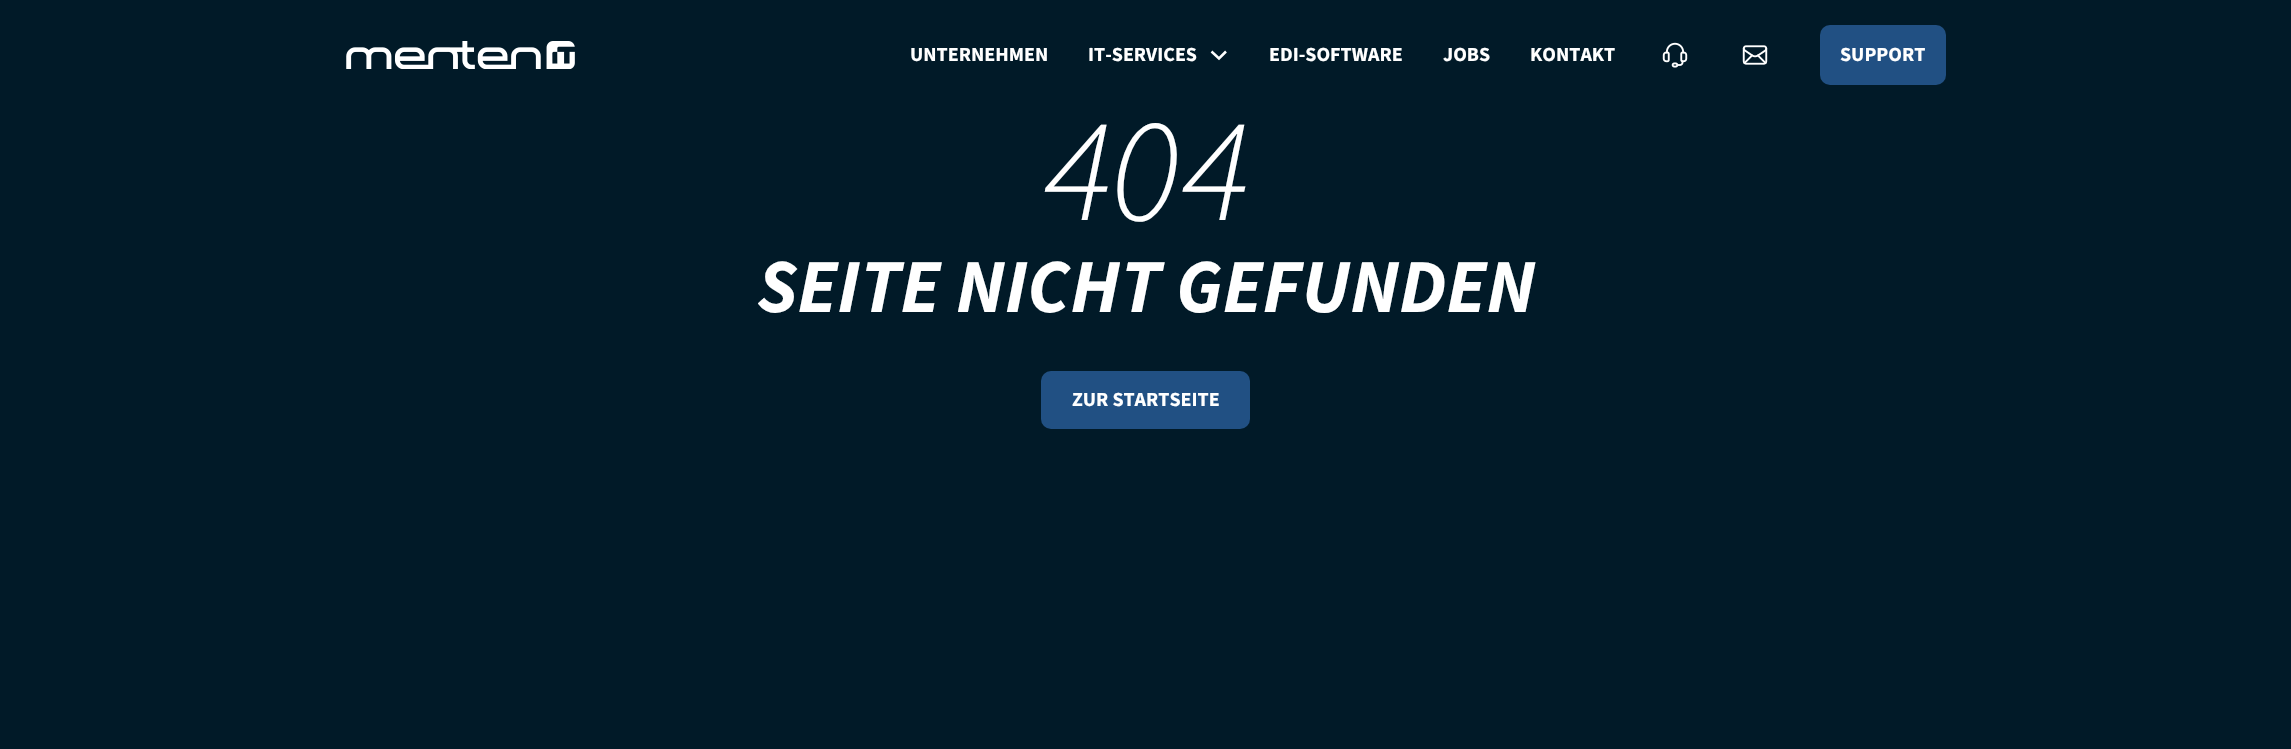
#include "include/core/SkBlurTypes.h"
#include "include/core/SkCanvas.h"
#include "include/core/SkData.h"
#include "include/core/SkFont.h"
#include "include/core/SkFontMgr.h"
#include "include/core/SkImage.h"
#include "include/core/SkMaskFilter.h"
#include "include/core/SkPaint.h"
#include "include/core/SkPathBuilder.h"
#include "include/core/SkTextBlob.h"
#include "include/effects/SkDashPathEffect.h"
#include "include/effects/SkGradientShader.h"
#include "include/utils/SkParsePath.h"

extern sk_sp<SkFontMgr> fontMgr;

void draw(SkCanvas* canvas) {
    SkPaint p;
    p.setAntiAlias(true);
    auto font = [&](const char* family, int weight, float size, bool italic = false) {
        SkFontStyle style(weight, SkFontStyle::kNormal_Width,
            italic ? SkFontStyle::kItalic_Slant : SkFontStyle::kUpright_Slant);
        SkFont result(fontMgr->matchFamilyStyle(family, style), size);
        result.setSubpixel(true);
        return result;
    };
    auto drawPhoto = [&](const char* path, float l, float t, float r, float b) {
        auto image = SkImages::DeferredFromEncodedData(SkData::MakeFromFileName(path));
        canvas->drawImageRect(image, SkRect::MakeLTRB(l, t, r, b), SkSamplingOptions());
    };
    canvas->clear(0xFF011A28);
    drawPhoto("media/1.png", 346, 41, 575, 69);
    auto font1 = font("Source Sans 3", 700, 20);
    p.setColor(0xFFFFFFFF);
    canvas->drawString("UNTERNEHMEN", 910, 61, font1, p);
    canvas->drawString("IT-SERVICES", 1088, 61, font1, p);
    p.setStyle(SkPaint::kStroke_Style);
    p.setStrokeWidth(2.5f);
    canvas->drawPath(SkPathBuilder().moveTo(1211.5f, 51.5f).lineTo(1219, 58.5f).lineTo(1226, 51.5f).detach(), p);
    p.setStyle(SkPaint::kFill_Style);
    {
        const struct { const char* s; float x, y; } items[] = {
            {"EDI-SOFTWARE", 1269, 61},
            {"JOBS", 1443, 61},
            {"KONTAKT", 1530, 61},
        };
        for (auto [s, x, y] : items) {
            canvas->drawString(s, x, y, font1, p);
        }
    }
    drawPhoto("media/2.png", 1662, 42, 1688, 68);
    drawPhoto("media/3.png", 1742, 45, 1768, 65);
    p.setColor(0xFF215083);
    canvas->drawRoundRect(SkRect::MakeLTRB(1820, 25, 1946, 85), 10, 10, p);
    p.setColor(0xFFFFFFFF);
    canvas->drawString("SUPPORT", 1840, 61, font1, p);
    auto font2 = font("Source Sans 3", 300, 149, true);
    canvas->drawString("404", 1042, 220, font2, p);
    auto font3 = font("Source Sans 3", 700, 76.25f, true);
    canvas->drawString("SEITE NICHT GEFUNDEN", 757, 312, font3, p);
    p.setColor(0xFF215083);
    canvas->drawRoundRect(SkRect::MakeLTRB(1041, 371, 1250, 429), 10, 10, p);
    p.setColor(0xFFFFFFFF);
    canvas->drawString("ZUR STARTSEITE", 1072, 406, font1, p);
}
